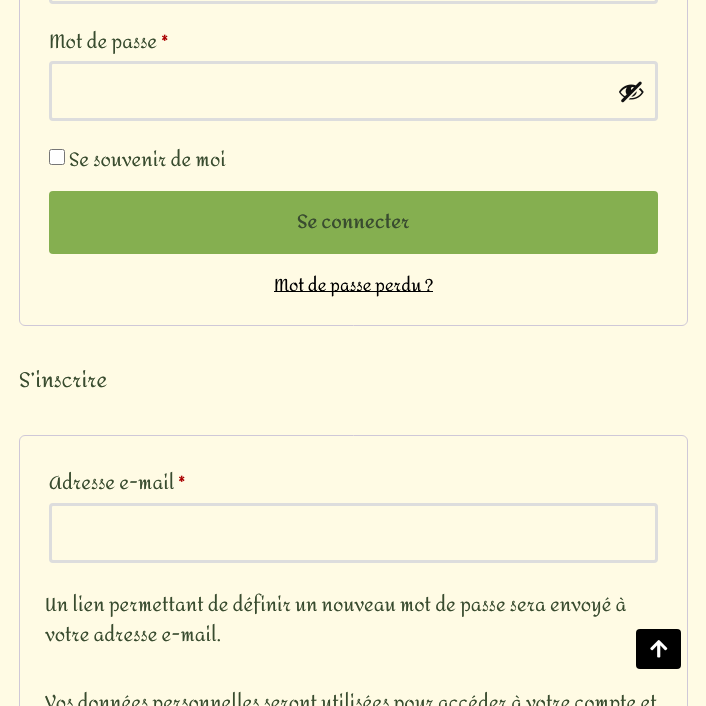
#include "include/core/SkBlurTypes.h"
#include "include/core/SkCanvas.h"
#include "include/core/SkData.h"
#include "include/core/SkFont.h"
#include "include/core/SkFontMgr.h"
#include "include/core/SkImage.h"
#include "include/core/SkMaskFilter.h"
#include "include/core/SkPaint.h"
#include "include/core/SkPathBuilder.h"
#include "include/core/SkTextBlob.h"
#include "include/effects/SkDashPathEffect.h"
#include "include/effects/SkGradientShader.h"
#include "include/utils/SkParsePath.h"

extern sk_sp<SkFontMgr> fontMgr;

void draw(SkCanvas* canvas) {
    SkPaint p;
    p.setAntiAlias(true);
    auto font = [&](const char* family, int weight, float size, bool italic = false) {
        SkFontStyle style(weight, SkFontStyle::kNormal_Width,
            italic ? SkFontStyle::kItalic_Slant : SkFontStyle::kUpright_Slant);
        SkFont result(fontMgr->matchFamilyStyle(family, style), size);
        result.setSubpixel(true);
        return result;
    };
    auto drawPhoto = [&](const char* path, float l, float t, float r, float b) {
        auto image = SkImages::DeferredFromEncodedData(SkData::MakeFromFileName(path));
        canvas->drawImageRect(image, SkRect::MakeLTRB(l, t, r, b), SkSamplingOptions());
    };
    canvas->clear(0xFFFFFBE4);
    p.setStyle(SkPaint::kStroke_Style);
    p.setStrokeWidth(1);
    p.setColor(0xFFCFC8D8);
    canvas->drawRoundRect(SkRect::MakeLTRB(19.5f, -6.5f, 687.5f, 325.5f), 5.5f, 5.5f, p);
    p.setStrokeWidth(3);
    p.setColor(0xFFDDDDDD);
    canvas->drawRoundRect(SkRect::MakeLTRB(50.5f, -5.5f, 656.5f, 2.5f), 2.5f, 2.5f, p);
    auto font1 = font("Amita", 400, 18.75f);
    p.setStyle(SkPaint::kFill_Style);
    p.setColor(0xFF394C2F);
    canvas->drawString("Mot de passe", 49, 48, font1, p);
    auto font2 = font("Amita", 700, 18.75f);
    p.setColor(0xFFAA0000);
    canvas->drawString("*", 161, 48, font2, p);
    p.setStyle(SkPaint::kStroke_Style);
    p.setColor(0xFFDDDDDD);
    canvas->drawRoundRect(SkRect::MakeLTRB(50.5f, 62.5f, 656.5f, 119.5f), 2.5f, 2.5f, p);
    drawPhoto("media/1.png", 619, 81, 644, 103);
    p.setStyle(SkPaint::kFill_Style);
    p.setColor(0xFFFFFFFF);
    canvas->drawRoundRect(SkRect::MakeLTRB(49.5f, 149.5f, 64.5f, 164.5f), 2, 2, p);
    p.setStyle(SkPaint::kStroke_Style);
    p.setStrokeWidth(1);
    p.setColor(0xFF767676);
    canvas->drawRoundRect(SkRect::MakeLTRB(49.5f, 149.5f, 64.5f, 164.5f), 2, 2, p);
    p.setStyle(SkPaint::kFill_Style);
    p.setColor(0xFF394C2F);
    canvas->drawString("Se souvenir de moi", 69, 166, font1, p);
    p.setColor(0xFF85AF50);
    canvas->drawRoundRect(SkRect::MakeLTRB(49, 191, 658, 254), 4, 4, p);
    p.setColor(0xFF394C2F);
    canvas->drawString("Se connecter", 297, 228, font2, p);
    p.setColor(0xFF000000);
    canvas->drawRect(SkRect::MakeLTRB(274, 291, 433, 292), p);
    auto font3 = font("Amita", 400, 16.9f);
    canvas->drawString("Mot de passe perdu ?", 274, 291, font3, p);
    auto font4 = font("Amita", 400, 20.5f);
    p.setColor(0xFF394C2F);
    canvas->drawString("S’inscrire", 19, 387, font4, p);
    p.setStyle(SkPaint::kStroke_Style);
    p.setColor(0xFFCFC8D8);
    canvas->drawRoundRect(SkRect::MakeLTRB(19.5f, 435.5f, 687.5f, 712.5f), 5.5f, 5.5f, p);
    p.setStyle(SkPaint::kFill_Style);
    p.setColor(0xFF394C2F);
    canvas->drawString("Adresse e-mail", 49, 489, font1, p);
    p.setColor(0xFFAA0000);
    canvas->drawString("*", 178, 489, font2, p);
    p.setStyle(SkPaint::kStroke_Style);
    p.setStrokeWidth(3);
    p.setColor(0xFFDDDDDD);
    canvas->drawRoundRect(SkRect::MakeLTRB(50.5f, 504.5f, 656.5f, 561.5f), 2.5f, 2.5f, p);
    p.setStyle(SkPaint::kFill_Style);
    p.setColor(0xFF394C2F);
    {
        const struct { const char* s; float x, y; } items[] = {
            {"Un lien permettant de définir un nouveau mot de passe sera envoyé à", 45, 611},
            {"votre adresse e-mail.", 45, 641},
            {"Vos données personnelles seront utilisées pour accéder à votre compte et", 45, 709},
        };
        for (auto [s, x, y] : items) {
            canvas->drawString(s, x, y, font1, p);
        }
    }
    p.setColor(0xFF000000);
    canvas->drawRoundRect(SkRect::MakeLTRB(636, 629, 681, 669), 4, 4, p);
    drawPhoto("media/2.png", 650, 640, 668, 658);
}
